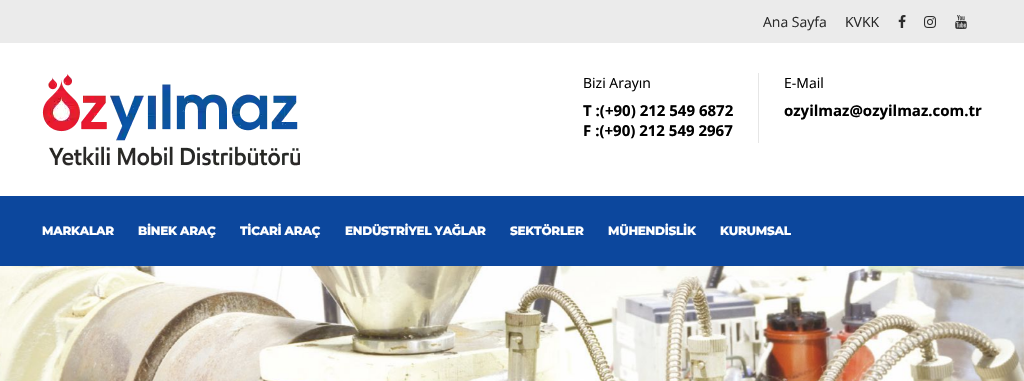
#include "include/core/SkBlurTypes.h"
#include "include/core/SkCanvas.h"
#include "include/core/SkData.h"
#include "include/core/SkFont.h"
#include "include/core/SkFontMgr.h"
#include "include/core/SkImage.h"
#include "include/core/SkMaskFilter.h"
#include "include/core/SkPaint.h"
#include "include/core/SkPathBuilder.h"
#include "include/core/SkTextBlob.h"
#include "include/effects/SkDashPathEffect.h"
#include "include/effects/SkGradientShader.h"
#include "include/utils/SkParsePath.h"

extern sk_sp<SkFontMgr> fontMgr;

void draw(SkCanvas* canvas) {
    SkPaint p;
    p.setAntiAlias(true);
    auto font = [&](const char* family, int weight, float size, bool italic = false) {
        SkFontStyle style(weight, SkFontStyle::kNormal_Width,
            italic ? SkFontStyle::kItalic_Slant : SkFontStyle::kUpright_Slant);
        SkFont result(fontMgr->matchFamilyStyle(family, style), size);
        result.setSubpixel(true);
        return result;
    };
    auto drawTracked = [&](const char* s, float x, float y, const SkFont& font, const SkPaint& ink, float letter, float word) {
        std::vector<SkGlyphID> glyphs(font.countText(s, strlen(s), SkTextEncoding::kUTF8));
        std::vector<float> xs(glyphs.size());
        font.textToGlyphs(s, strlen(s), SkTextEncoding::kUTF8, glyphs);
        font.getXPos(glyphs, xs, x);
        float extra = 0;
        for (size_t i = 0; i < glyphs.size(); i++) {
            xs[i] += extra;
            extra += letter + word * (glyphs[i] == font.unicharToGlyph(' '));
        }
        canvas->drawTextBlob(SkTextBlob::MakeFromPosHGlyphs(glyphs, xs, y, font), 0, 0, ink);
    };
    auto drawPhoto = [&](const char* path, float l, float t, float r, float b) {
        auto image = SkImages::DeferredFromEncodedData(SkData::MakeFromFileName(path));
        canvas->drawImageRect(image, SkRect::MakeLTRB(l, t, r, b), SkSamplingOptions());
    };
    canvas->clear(0xFFFFFFFF);
    p.setColor(0xFFEBEBEB);
    canvas->drawRect(SkRect::MakeLTRB(0, 0, 1024, 43), p);
    auto font1 = font("Open Sans", 400, 14);
    p.setColor(0xFF2C2C2C);
    canvas->drawString("Ana Sayfa", 763, 27, font1, p);
    canvas->drawString("KVKK", 845, 27, font1, p);
    drawPhoto("media/1.png", 898, 15, 906, 28);
    drawPhoto("media/2.png", 924, 16, 936, 28);
    drawPhoto("media/3.png", 955, 15, 967, 29);
    drawPhoto("media/4.png", 42, 74, 300, 166);
    p.setColor(0xFFE6E6E6);
    canvas->drawRect(SkRect::MakeLTRB(758, 73, 759, 143), p);
    p.setColor(0xFF000000);
    canvas->drawString("Bizi Arayın", 583, 88, font1, p);
    auto font2 = font("Open Sans", 700, 15);
    canvas->drawString("T :(+90) 212 549 6872", 583, 116, font2, p);
    canvas->drawString("F :(+90) 212 549 2967", 583, 136, font2, p);
    canvas->drawString("E-Mail", 784, 88, font1, p);
    canvas->drawString("ozyilmaz@ozyilmaz.com.tr", 784, 116, font2, p);
    p.setColor(0xFF0C479D);
    canvas->drawRect(SkRect::MakeLTRB(0, 196, 1024, 266), p);
    auto font3 = font("Montserrat", 800, 12);
    p.setColor(0xFFFFFFFF);
    {
        const struct { const char* s; float x, y; } items[] = {
            {"MARKALAR", 42, 235},
            {"BİNEK ARAÇ", 138, 235},
            {"TİCARİ ARAÇ", 240, 235},
            {"ENDÜSTRİYEL YAĞLAR", 345, 235},
            {"SEKTÖRLER", 510, 235},
            {"MÜHENDİSLİK", 608, 235},
            {"KURUMSAL", 720, 235},
        };
        for (auto [s, x, y] : items) {
            drawTracked(s, x, y, font3, p, -0.25f, 0);
        }
    }
    drawPhoto("media/5.png", 0, 266, 1024, 381);
}
